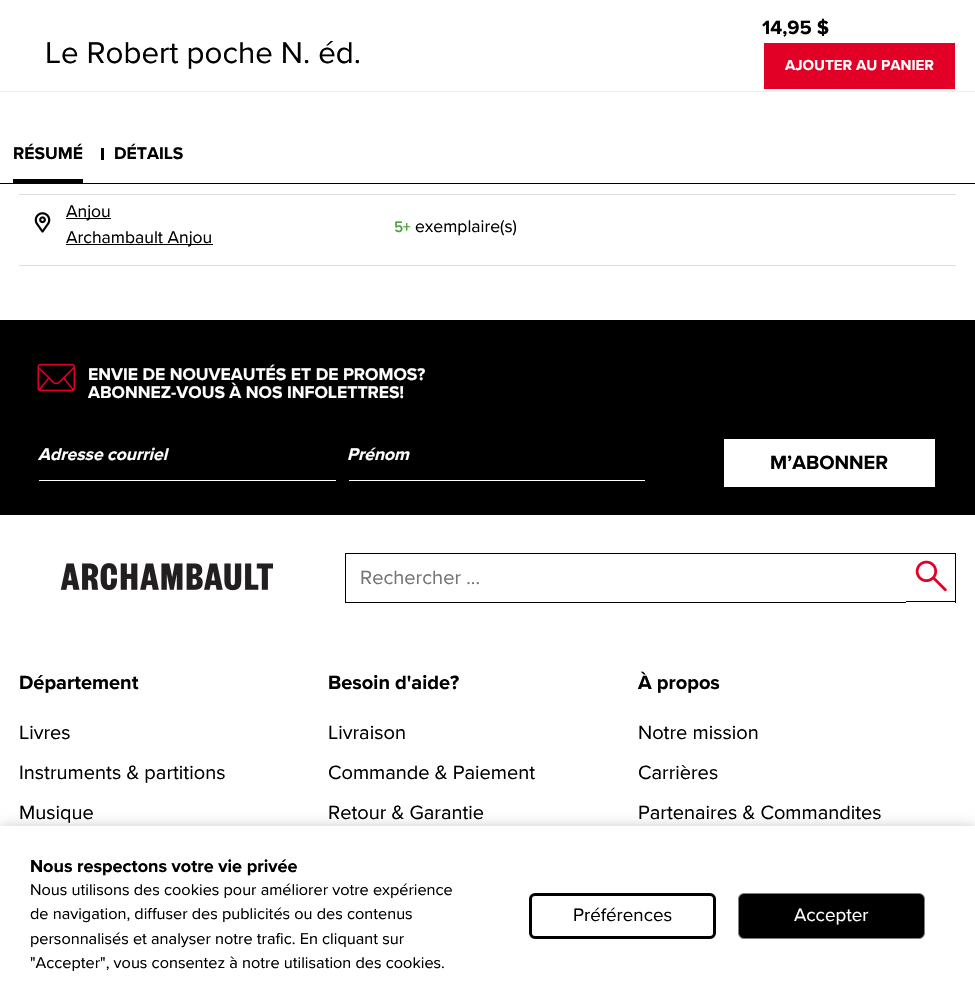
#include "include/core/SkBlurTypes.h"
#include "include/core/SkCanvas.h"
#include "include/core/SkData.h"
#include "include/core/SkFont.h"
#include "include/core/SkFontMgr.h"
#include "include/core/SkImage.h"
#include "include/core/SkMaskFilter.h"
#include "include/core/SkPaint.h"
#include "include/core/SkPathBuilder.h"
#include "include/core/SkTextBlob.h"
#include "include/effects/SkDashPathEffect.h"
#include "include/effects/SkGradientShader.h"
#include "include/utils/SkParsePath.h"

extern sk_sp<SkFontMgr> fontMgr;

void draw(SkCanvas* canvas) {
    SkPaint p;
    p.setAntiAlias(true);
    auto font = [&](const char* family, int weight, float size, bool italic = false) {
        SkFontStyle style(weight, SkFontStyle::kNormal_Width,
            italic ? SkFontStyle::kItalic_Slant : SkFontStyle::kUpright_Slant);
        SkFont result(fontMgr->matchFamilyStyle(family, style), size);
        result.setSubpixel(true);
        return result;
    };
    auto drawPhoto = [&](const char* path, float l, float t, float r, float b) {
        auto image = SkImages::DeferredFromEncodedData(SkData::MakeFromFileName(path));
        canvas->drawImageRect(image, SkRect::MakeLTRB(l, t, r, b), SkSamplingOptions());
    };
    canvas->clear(0xFFFFFFFF);
    auto font1 = font("Proxima Nova", 400, 31.25f);
    p.setColor(0xFF000000);
    canvas->drawString("Le Robert poche N. éd.", 45, 63, font1, p);
    auto font2 = font("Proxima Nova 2", 700, 20);
    canvas->drawString("14,95 $", 762, 34, font2, p);
    p.setColor(0xFFE20027);
    canvas->drawRect(SkRect::MakeLTRB(764, 43, 955, 89), p);
    auto font3 = font("Proxima Nova 2", 700, 15);
    p.setColor(0xFFFFFFFF);
    canvas->drawString("AJOUTER AU PANIER", 785, 70, font3, p);
    p.setColor(0xFFEEEEEE);
    canvas->drawRect(SkRect::MakeLTRB(0, 91, 975, 92), p);
    p.setColor(0xFF000000);
    canvas->drawRect(SkRect::MakeLTRB(0, 183, 975, 184), p);
    auto font4 = font("Proxima Nova 2", 700, 17.5f);
    canvas->drawString("RÉSUMÉ", 13, 159, font4, p);
    canvas->drawRect(SkRect::MakeLTRB(13, 179, 83, 183), p);
    canvas->drawRect(SkRect::MakeLTRB(101, 148, 104, 160), p);
    canvas->drawString("DÉTAILS", 114, 159, font4, p);
    p.setColor(0xFFDDDDDD);
    canvas->drawRect(SkRect::MakeLTRB(19, 194, 956, 195), p);
    canvas->drawRect(SkRect::MakeLTRB(19, 265, 956, 266), p);
    drawPhoto("media/1.png", 34, 212, 51, 233);
    p.setColor(0xFF000000);
    canvas->drawRect(SkRect::MakeLTRB(66, 218, 111, 219), p);
    auto font5 = font("Proxima Nova", 400, 17.5f);
    canvas->drawString("Anjou", 66, 217, font5, p);
    canvas->drawRect(SkRect::MakeLTRB(66, 244, 213, 245), p);
    canvas->drawString("Archambault Anjou", 66, 243, font5, p);
    auto font6 = font("Proxima Nova", 700, 15);
    p.setColor(0xFF49A23A);
    canvas->drawString("5+", 394, 232, font6, p);
    p.setColor(0xFF000000);
    canvas->drawString("exemplaire(s)", 415, 232, font5, p);
    canvas->drawRect(SkRect::MakeLTRB(0, 320, 975, 515), p);
    drawPhoto("media/2.png", 37, 363, 75, 392);
    p.setColor(0xFFFFFFFF);
    canvas->drawString("ENVIE DE NOUVEAUTÉS ET DE PROMOS?", 88, 380, font4, p);
    canvas->drawString("ABONNEZ-VOUS À NOS INFOLETTRES!", 88, 398, font4, p);
    auto font7 = font("Proxima Nova", 700, 17.5f, true);
    canvas->drawString("Adresse courriel", 38, 460, font7, p);
    canvas->drawRect(SkRect::MakeLTRB(39, 480, 336, 481), p);
    canvas->drawString("Prénom", 347, 460, font7, p);
    canvas->drawRect(SkRect::MakeLTRB(349, 480, 645, 481), p);
    canvas->drawRect(SkRect::MakeLTRB(724, 439, 935, 487), p);
    p.setColor(0xFF000000);
    canvas->drawString("M’ABONNER", 770, 469, font2, p);
    drawPhoto("media/3.png", 60, 563, 274, 591);
    p.setStyle(SkPaint::kStroke_Style);
    p.setStrokeWidth(1);
    canvas->drawRect(SkRect::MakeLTRB(345.5f, 553.5f, 907.5f, 602.5f), p);
    auto font8 = font("Proxima Nova", 400, 20);
    p.setStyle(SkPaint::kFill_Style);
    p.setColor(0xFF757575);
    canvas->drawString("Rechercher ...", 360, 584, font8, p);
    {
        const struct { float l, t, r, b; SkColor color; } items[] = {
            {906, 554, 908, 603, 0xFFFFFFFF},
            {906, 553, 956, 554, 0xFF000000},
            {955, 553, 956, 603, 0xFF000000},
            {906, 601, 956, 602, 0xFF000000},
        };
        for (auto [l, t, r, b, color] : items) {
            p.setColor(color);
            canvas->drawRect(SkRect::MakeLTRB(l, t, r, b), p);
        }
    }
    drawPhoto("media/4.png", 915, 560, 947, 592);
    canvas->drawString("Département", 19, 689, font2, p);
    {
        const struct { const char* s; float x, y; } items[] = {
            {"Livres", 19, 739},
            {"Instruments & partitions", 19, 779},
            {"Musique", 19, 819},
        };
        for (auto [s, x, y] : items) {
            canvas->drawString(s, x, y, font8, p);
        }
    }
    canvas->drawString("Besoin d'aide?", 328, 689, font2, p);
    {
        const struct { const char* s; float x, y; } items[] = {
            {"Livraison", 328, 739},
            {"Commande & Paiement", 328, 779},
            {"Retour & Garantie", 328, 819},
        };
        for (auto [s, x, y] : items) {
            canvas->drawString(s, x, y, font8, p);
        }
    }
    canvas->drawString("À propos", 638, 689, font2, p);
    {
        const struct { const char* s; float x, y; } items[] = {
            {"Notre mission", 638, 739},
            {"Carrières", 638, 779},
            {"Partenaires & Commandites", 638, 819},
        };
        for (auto [s, x, y] : items) {
            canvas->drawString(s, x, y, font8, p);
        }
    }
    p.setColor(0x33000000);
    p.setMaskFilter(SkMaskFilter::MakeBlur(kNormal_SkBlurStyle, 6));
    canvas->drawRect(SkRect::MakeLTRB(0, 826, 975, 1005), p);
    p.setMaskFilter(nullptr);
    p.setColor(0xFFFFFFFF);
    canvas->drawRect(SkRect::MakeLTRB(0, 826, 975, 1004), p);
    auto font9 = font("Proxima Nova 2", 700, 18);
    p.setColor(0xFF000000);
    canvas->drawString("Nous respectons votre vie privée", 30, 872, font9, p);
    auto font10 = font("Proxima Nova", 400, 16.25f);
    {
        const struct { const char* s; float x, y; } items[] = {
            {"Nous utilisons des cookies pour améliorer votre expérience", 30, 895},
            {"de navigation, diffuser des publicités ou des contenus", 30, 919},
            {"personnalisés et analyser notre trafic. En cliquant sur", 30, 944},
            {"\"Accepter\", vous consentez à notre utilisation des cookies.", 30, 968},
        };
        for (auto [s, x, y] : items) {
            canvas->drawString(s, x, y, font10, p);
        }
    }
    p.setStyle(SkPaint::kStroke_Style);
    p.setStrokeWidth(3);
    canvas->drawRoundRect(SkRect::MakeLTRB(530.5f, 894.5f, 714.5f, 937.5f), 4.5f, 4.5f, p);
    auto font11 = font("Proxima Nova", 400, 18.75f);
    p.setStyle(SkPaint::kFill_Style);
    canvas->drawString("Préférences", 573, 921, font11, p);
    canvas->drawRoundRect(SkRect::MakeLTRB(738.5f, 893.5f, 924.5f, 938.5f), 5.5f, 5.5f, p);
    p.setStyle(SkPaint::kStroke_Style);
    p.setStrokeWidth(1);
    p.setColor(0xFF808080);
    canvas->drawRoundRect(SkRect::MakeLTRB(738.5f, 893.5f, 924.5f, 938.5f), 5.5f, 5.5f, p);
    p.setStyle(SkPaint::kFill_Style);
    p.setColor(0xFFFFFFFF);
    canvas->drawString("Accepter", 794, 921, font11, p);
}
